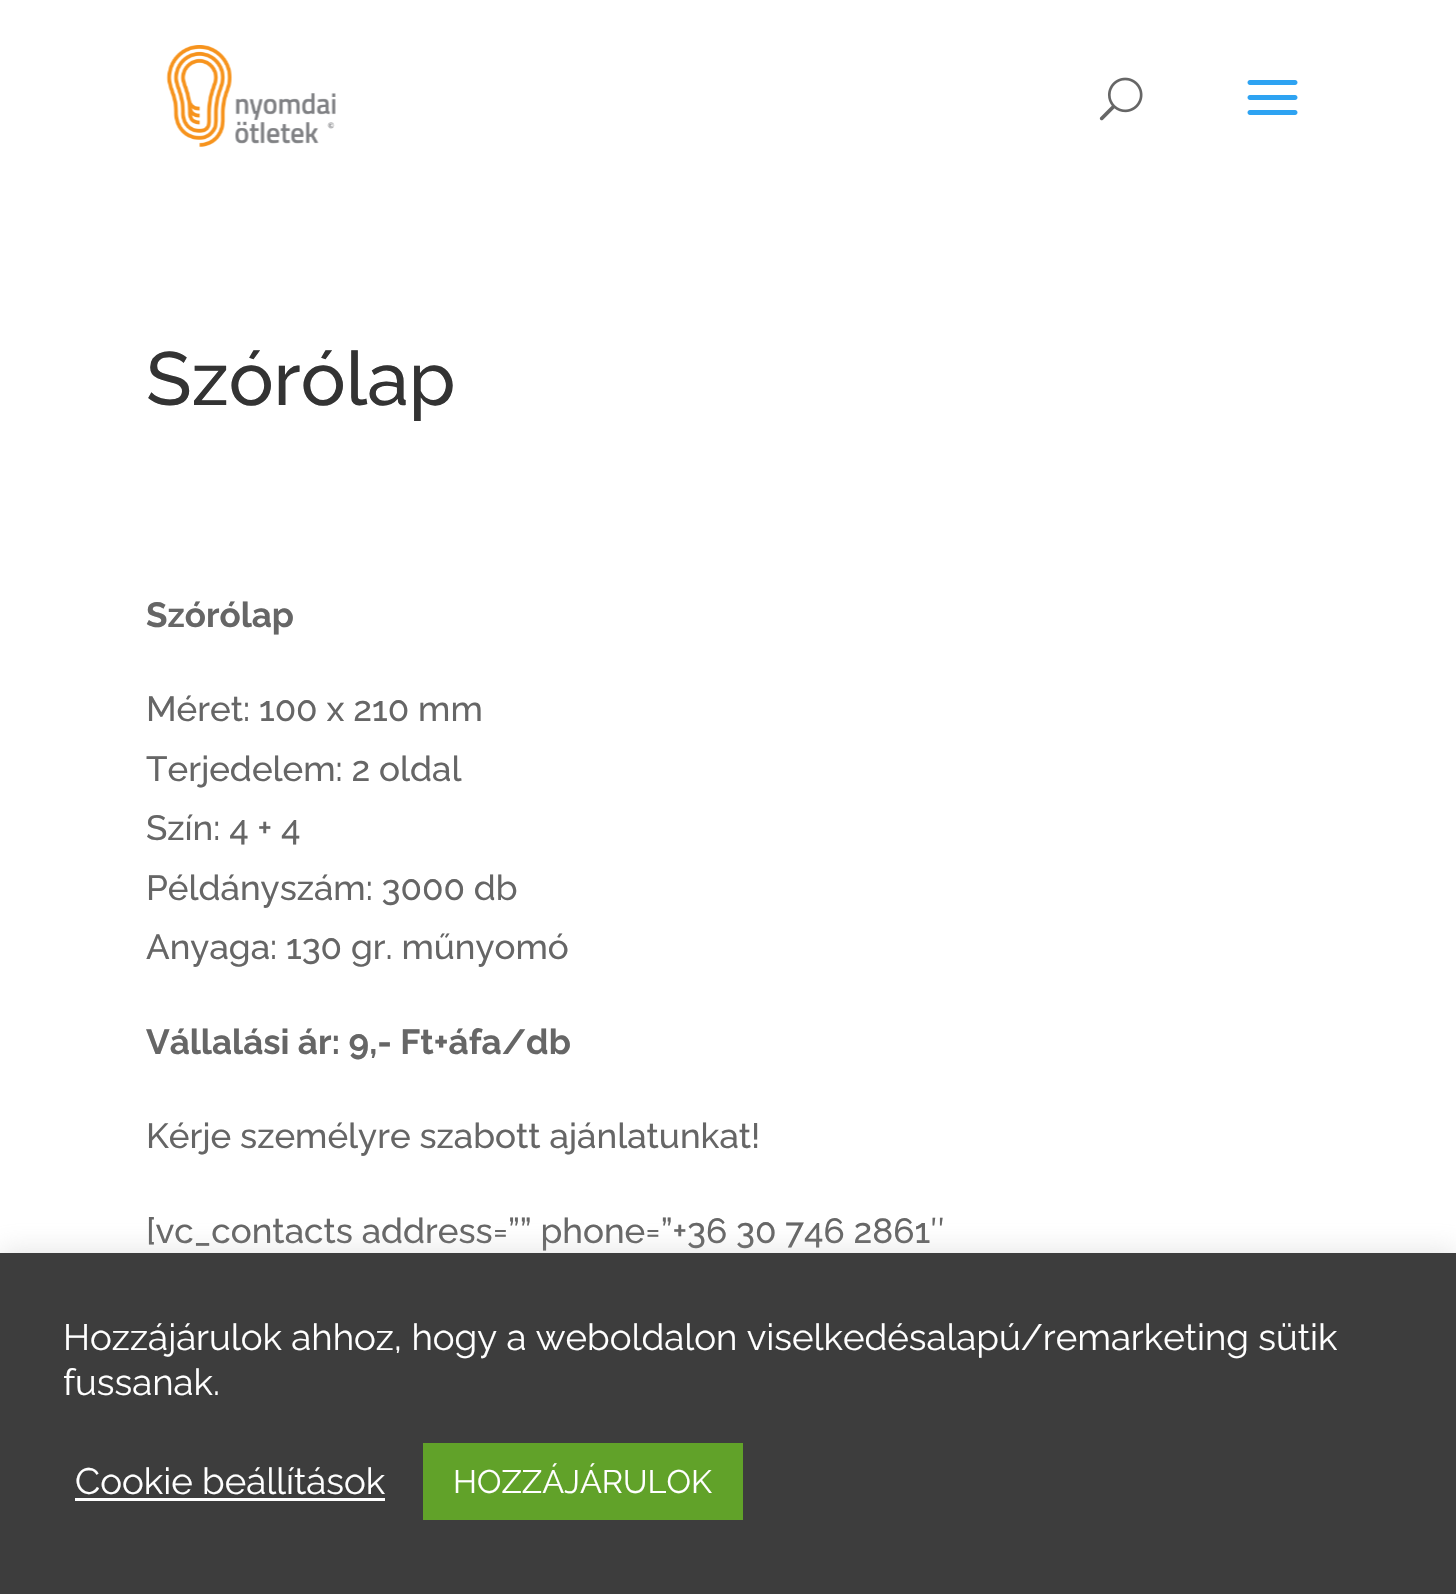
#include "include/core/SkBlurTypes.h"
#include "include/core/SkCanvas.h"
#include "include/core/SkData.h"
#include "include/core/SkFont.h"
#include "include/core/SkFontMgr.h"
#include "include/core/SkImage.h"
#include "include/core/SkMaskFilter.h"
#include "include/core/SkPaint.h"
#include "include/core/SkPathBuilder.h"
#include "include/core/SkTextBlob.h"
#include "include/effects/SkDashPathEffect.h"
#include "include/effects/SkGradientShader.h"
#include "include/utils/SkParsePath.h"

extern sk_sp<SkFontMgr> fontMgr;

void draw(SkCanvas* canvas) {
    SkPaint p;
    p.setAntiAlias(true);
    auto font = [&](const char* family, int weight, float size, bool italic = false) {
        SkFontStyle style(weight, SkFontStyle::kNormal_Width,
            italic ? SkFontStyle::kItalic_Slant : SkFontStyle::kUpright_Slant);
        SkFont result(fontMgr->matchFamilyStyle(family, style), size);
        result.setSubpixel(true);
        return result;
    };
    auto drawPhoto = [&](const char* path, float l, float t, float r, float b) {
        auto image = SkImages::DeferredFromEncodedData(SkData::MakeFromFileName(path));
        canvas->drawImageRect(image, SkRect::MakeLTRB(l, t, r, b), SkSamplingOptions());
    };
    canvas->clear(0xFFFFFFFF);
    drawPhoto("media/1.png", 166, 45, 336, 147);
    drawPhoto("media/2.png", 1099, 77, 1143, 121);
    drawPhoto("media/3.png", 1247, 80, 1298, 115);
    auto font1 = font("Raleway", 100, 75);
    p.setColor(0xFF333333);
    canvas->drawString("Szórólap", 146, 405, font1, p);
    auto font2 = font("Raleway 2", 100, 35);
    p.setColor(0xFF666666);
    canvas->drawString("Szórólap", 146, 627, font2, p);
    auto font3 = font("Raleway", 100, 35);
    {
        const struct { const char* s; float x, y; } items[] = {
            {"Méret: 100 x 210 mm", 146, 721},
            {"Terjedelem: 2 oldal", 146, 781},
            {"Szín: 4 + 4", 146, 840},
            {"Példányszám: 3000 db", 146, 900},
            {"Anyaga: 130 gr. műnyomó", 146, 959},
        };
        for (auto [s, x, y] : items) {
            canvas->drawString(s, x, y, font3, p);
        }
    }
    canvas->drawString("Vállalási ár: 9,- Ft+áfa/db", 146, 1054, font2, p);
    canvas->drawString("Kérje személyre szabott ajánlatunkat!", 146, 1148, font3, p);
    canvas->drawString("[vc_contacts address=”” phone=”+36 30 746 2861″", 146, 1243, font3, p);
    p.setColor(0x4DACABAB);
    p.setMaskFilter(SkMaskFilter::MakeBlur(kNormal_SkBlurStyle, 12.5f));
    canvas->drawRect(SkRect::MakeLTRB(0, 1250, 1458, 1593), p);
    p.setMaskFilter(nullptr);
    p.setColor(0xFF3D3D3D);
    canvas->drawRect(SkRect::MakeLTRB(0, 1253, 1456, 1594), p);
    auto font4 = font("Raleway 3", 100, 36.65f);
    p.setColor(0xFFFFFFFF);
    {
        const struct { const char* s; float x, y; } items[] = {
            {"Hozzájárulok ahhoz, hogy a weboldalon viselkedésalapú/remarketing sütik", 63, 1350},
            {"fussanak.", 63, 1395},
            {"Cookie beállítások", 75, 1494},
        };
        for (auto [s, x, y] : items) {
            canvas->drawString(s, x, y, font4, p);
        }
    }
    canvas->drawRect(SkRect::MakeLTRB(75, 1498, 385, 1501), p);
    p.setColor(0xFF61A229);
    canvas->drawRect(SkRect::MakeLTRB(423, 1443, 743, 1520), p);
    auto font5 = font("Raleway 3", 100, 32.5f);
    p.setColor(0xFFFFFFFF);
    canvas->drawString("HOZZÁJÁRULOK", 453, 1493, font5, p);
}
